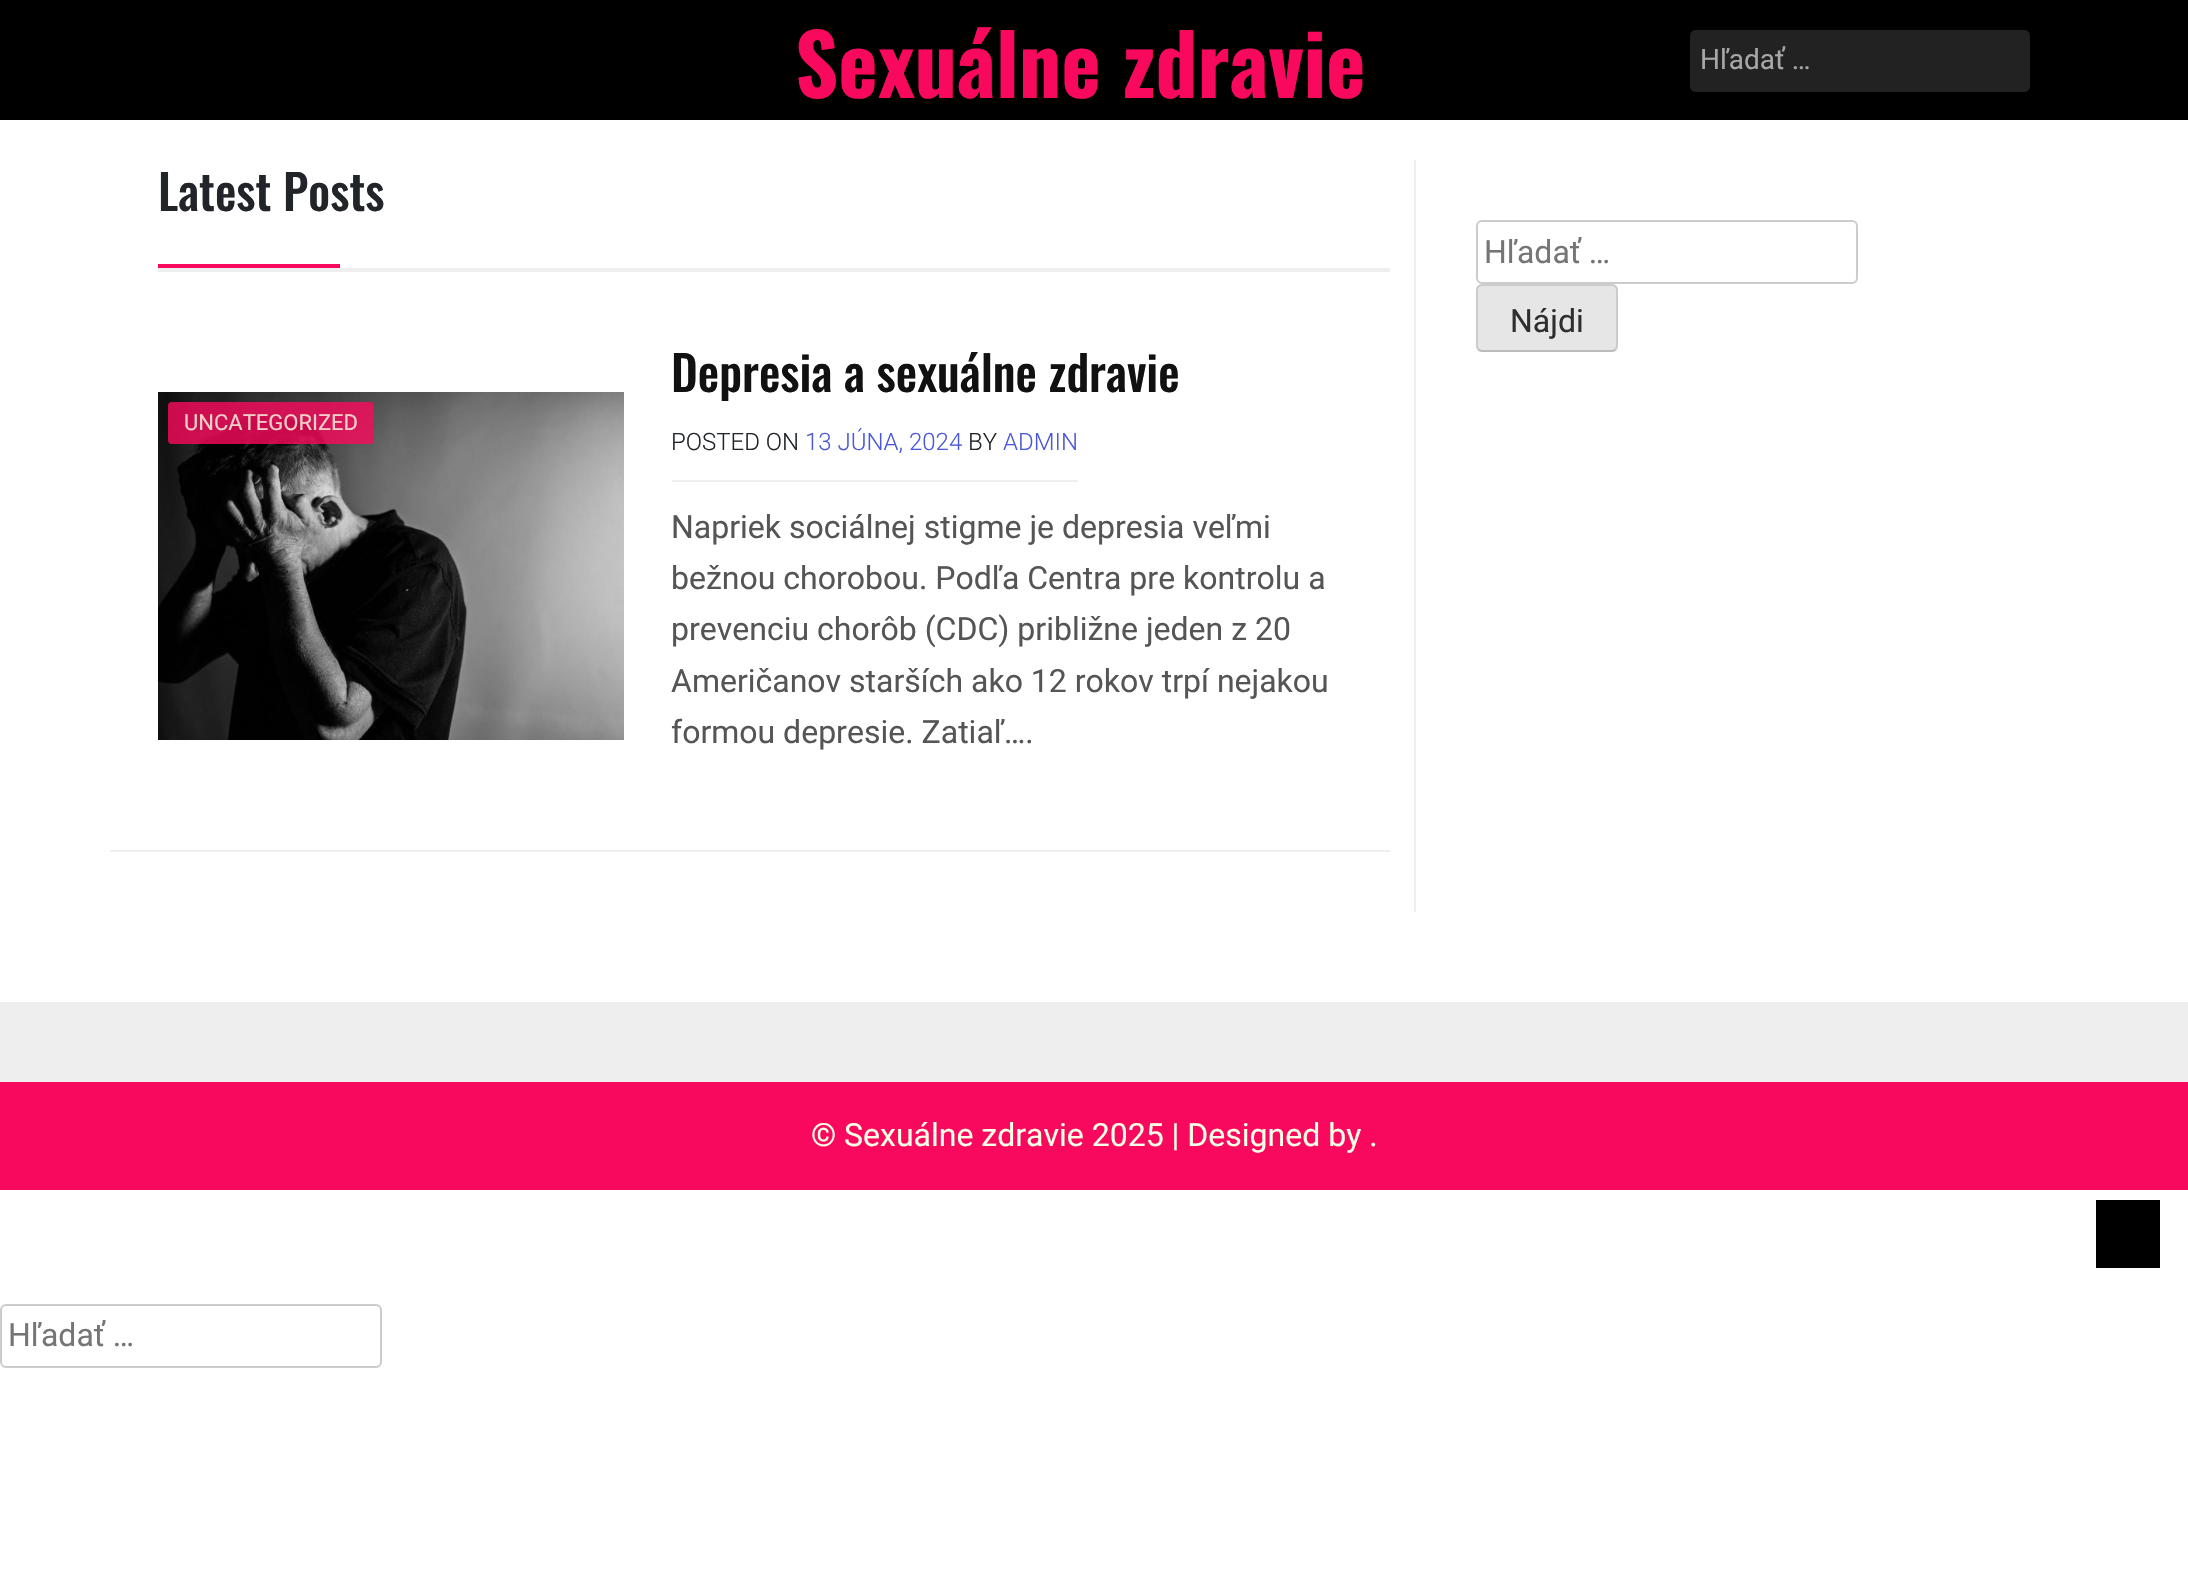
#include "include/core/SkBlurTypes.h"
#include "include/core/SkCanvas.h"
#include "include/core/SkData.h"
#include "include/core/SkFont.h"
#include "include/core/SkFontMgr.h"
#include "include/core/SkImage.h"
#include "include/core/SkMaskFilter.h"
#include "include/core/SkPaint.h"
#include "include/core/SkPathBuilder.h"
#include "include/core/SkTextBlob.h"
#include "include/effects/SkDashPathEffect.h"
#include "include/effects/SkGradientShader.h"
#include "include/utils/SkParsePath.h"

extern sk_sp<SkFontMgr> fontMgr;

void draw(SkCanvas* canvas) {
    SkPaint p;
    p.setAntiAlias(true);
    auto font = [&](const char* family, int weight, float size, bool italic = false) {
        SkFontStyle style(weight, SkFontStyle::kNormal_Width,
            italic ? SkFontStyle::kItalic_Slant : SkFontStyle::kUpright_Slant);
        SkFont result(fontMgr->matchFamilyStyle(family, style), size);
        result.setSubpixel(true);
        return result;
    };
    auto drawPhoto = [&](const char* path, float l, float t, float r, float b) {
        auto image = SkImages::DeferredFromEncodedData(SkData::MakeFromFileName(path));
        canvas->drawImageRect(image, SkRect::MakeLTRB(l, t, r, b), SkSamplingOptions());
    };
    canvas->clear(0xFFFFFFFF);
    p.setColor(0xFF000000);
    canvas->drawRect(SkRect::MakeLTRB(0, 0, 2188, 120), p);
    auto font1 = font("Oswald", 700, 84);
    p.setColor(0xFFF9095D);
    canvas->drawString("Sexuálne zdravie", 795, 98, font1, p);
    p.setColor(0xFF222222);
    canvas->drawRoundRect(SkRect::MakeLTRB(1690, 30, 2030, 92), 6, 6, p);
    p.setStyle(SkPaint::kStroke_Style);
    p.setStrokeWidth(4);
    p.setPathEffect(SkDashPathEffect::Make({{4, 4}}, 0));
    canvas->drawPath(SkPathBuilder().moveTo(1696, 32).lineTo(2024, 32).cubicTo(2026, 32, 2028, 34, 2028, 36).lineTo(2028, 86).cubicTo(2028, 88, 2026, 90, 2024, 90).lineTo(1696, 90).cubicTo(1694, 90, 1692, 88, 1692, 86).lineTo(1692, 36).cubicTo(1692, 34, 1694, 32, 1696, 32).close().detach(), p);
    p.setPathEffect(nullptr);
    auto font2 = font("Roboto", 400, 28);
    p.setStyle(SkPaint::kFill_Style);
    p.setColor(0xFFA7A7A7);
    canvas->drawString("Hľadať …", 1700, 69, font2, p);
    p.setColor(0xFFEEEEEE);
    canvas->drawRect(SkRect::MakeLTRB(158, 268, 1390, 272), p);
    auto font3 = font("Oswald", 500, 48);
    p.setColor(0xFF212529);
    canvas->drawString("Latest Posts", 158, 211, font3, p);
    p.setColor(0xFFF9095D);
    canvas->drawRect(SkRect::MakeLTRB(158, 264, 340, 268), p);
    p.setColor(0xFFEEEEEE);
    canvas->drawRect(SkRect::MakeLTRB(110, 850, 1390, 852), p);
    drawPhoto("media/1.png", 158, 392, 624, 740);
    p.setColor(0xCCF9095D);
    canvas->drawRoundRect(SkRect::MakeLTRB(168, 402, 374, 444), 4, 4, p);
    auto font4 = font("Roboto", 400, 22);
    p.setColor(0xFFF1CFC9);
    canvas->drawString("UNCATEGORIZED", 184, 430, font4, p);
    p.setColor(0xFF111111);
    canvas->drawString("Depresia a sexuálne zdravie", 671, 392, font3, p);
    p.setColor(0xFFEEEEEE);
    canvas->drawRect(SkRect::MakeLTRB(672, 480, 1078, 482), p);
    auto font5 = font("Roboto", 300, 24);
    p.setColor(0xFF212529);
    canvas->drawString("POSTED ON", 671, 450, font5, p);
    p.setColor(0xFF4A58D9);
    canvas->drawString("13 JÚNA, 2024", 805, 450, font5, p);
    p.setColor(0xFF212529);
    canvas->drawString("BY", 968, 450, font5, p);
    p.setColor(0xFF4A58D9);
    canvas->drawString("ADMIN", 1003, 450, font5, p);
    auto font6 = font("Roboto", 400, 32);
    p.setColor(0xFF555555);
    {
        const struct { const char* s; float x, y; } items[] = {
            {"Napriek sociálnej stigme je depresia veľmi", 671, 538},
            {"bežnou chorobou. Podľa Centra pre kontrolu a", 671, 589},
            {"prevenciu chorôb (CDC) približne jeden z 20", 671, 640},
            {"Američanov starších ako 12 rokov trpí nejakou", 671, 692},
            {"formou depresie. Zatiaľ….", 671, 743},
        };
        for (auto [s, x, y] : items) {
            canvas->drawString(s, x, y, font6, p);
        }
    }
    p.setColor(0xFFEEEEEE);
    canvas->drawRect(SkRect::MakeLTRB(1414, 160, 1416, 912), p);
    p.setStyle(SkPaint::kStroke_Style);
    p.setStrokeWidth(2);
    p.setColor(0xFFCCCCCC);
    canvas->drawRoundRect(SkRect::MakeLTRB(1477, 221, 1857, 283), 5, 5, p);
    p.setStyle(SkPaint::kFill_Style);
    p.setColor(0xFF757575);
    canvas->drawString("Hľadať …", 1484, 263, font6, p);
    p.setColor(0xFFE6E6E6);
    canvas->drawRoundRect(SkRect::MakeLTRB(1476, 284, 1618, 352), 6, 6, p);
    p.setStyle(SkPaint::kStroke_Style);
    p.setColor(0xFFBBBBBB);
    canvas->drawPath(SkPathBuilder().moveTo(1615.5f, 349.5f).cubicTo(1614.5f, 350.5f, 1613.5f, 351, 1612, 351).lineTo(1482, 351).cubicTo(1480.5f, 351, 1479.5f, 350.5f, 1478.5f, 349.5f).detach(), p);
    p.setColor(0xFFCCCCCC);
    canvas->drawPath(SkPathBuilder().moveTo(1478.5f, 349.5f).cubicTo(1477.5f, 348.5f, 1477, 347.5f, 1477, 346).lineTo(1477, 290).cubicTo(1477, 288.5f, 1477.5f, 287.5f, 1478.5f, 286.5f).cubicTo(1479.5f, 285.5f, 1480.5f, 285, 1482, 285).lineTo(1612, 285).cubicTo(1613.5f, 285, 1614.5f, 285.5f, 1615.5f, 286.5f).cubicTo(1616.5f, 287.5f, 1617, 288.5f, 1617, 290).lineTo(1617, 346).cubicTo(1617, 347.5f, 1616.5f, 348.5f, 1615.5f, 349.5f).detach(), p);
    p.setStyle(SkPaint::kFill_Style);
    p.setColor(0xFF2E2E2E);
    canvas->drawString("Nájdi", 1510, 332, font6, p);
    p.setColor(0xFFEEEEEE);
    canvas->drawRect(SkRect::MakeLTRB(0, 1002, 2188, 1082), p);
    p.setColor(0xFFF9095D);
    canvas->drawRect(SkRect::MakeLTRB(0, 1082, 2188, 1190), p);
    p.setColor(0xFFF9FFE7);
    canvas->drawString("© Sexuálne zdravie 2025 | Designed by .", 811, 1146, font6, p);
    p.setColor(0xFF000000);
    canvas->drawRect(SkRect::MakeLTRB(2096, 1200, 2160, 1268), p);
    p.setStyle(SkPaint::kStroke_Style);
    p.setColor(0xFFCCCCCC);
    canvas->drawRoundRect(SkRect::MakeLTRB(1, 1305, 381, 1367), 5, 5, p);
    p.setStyle(SkPaint::kFill_Style);
    p.setColor(0xFF757575);
    canvas->drawString("Hľadať …", 8, 1346, font6, p);
}
